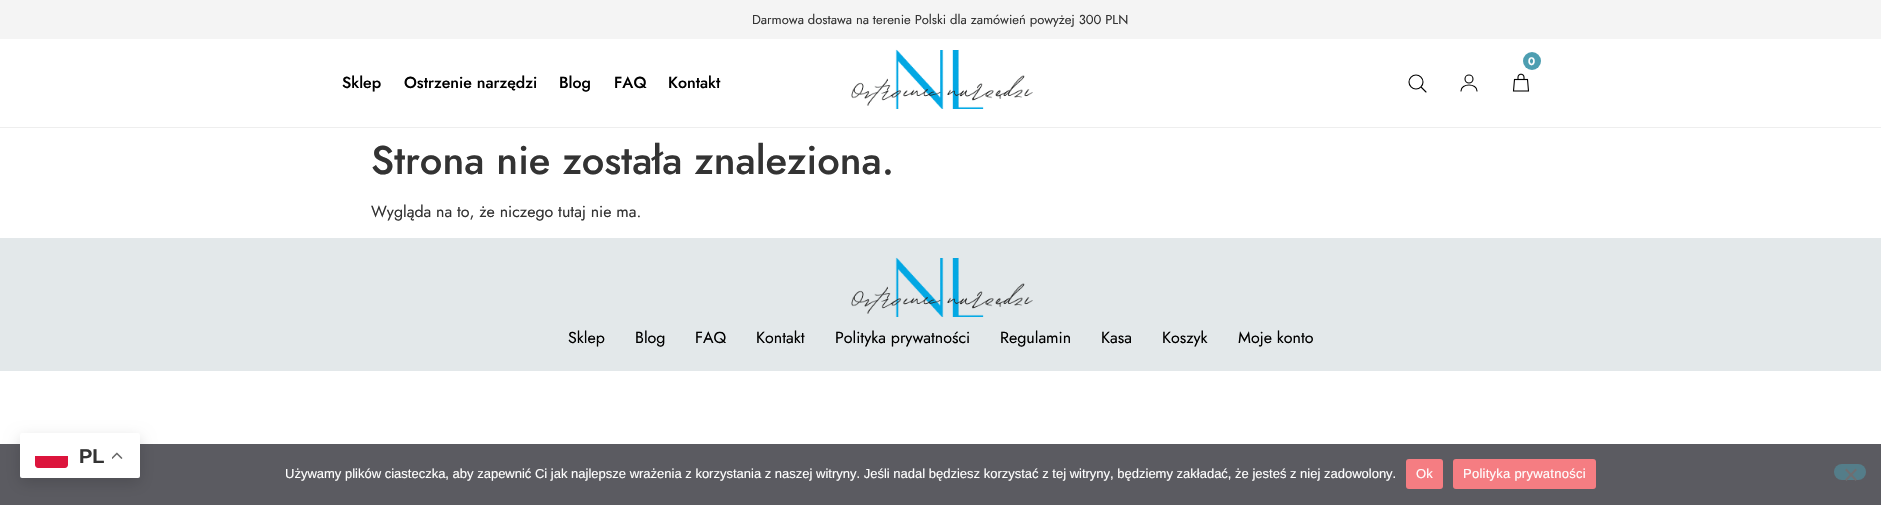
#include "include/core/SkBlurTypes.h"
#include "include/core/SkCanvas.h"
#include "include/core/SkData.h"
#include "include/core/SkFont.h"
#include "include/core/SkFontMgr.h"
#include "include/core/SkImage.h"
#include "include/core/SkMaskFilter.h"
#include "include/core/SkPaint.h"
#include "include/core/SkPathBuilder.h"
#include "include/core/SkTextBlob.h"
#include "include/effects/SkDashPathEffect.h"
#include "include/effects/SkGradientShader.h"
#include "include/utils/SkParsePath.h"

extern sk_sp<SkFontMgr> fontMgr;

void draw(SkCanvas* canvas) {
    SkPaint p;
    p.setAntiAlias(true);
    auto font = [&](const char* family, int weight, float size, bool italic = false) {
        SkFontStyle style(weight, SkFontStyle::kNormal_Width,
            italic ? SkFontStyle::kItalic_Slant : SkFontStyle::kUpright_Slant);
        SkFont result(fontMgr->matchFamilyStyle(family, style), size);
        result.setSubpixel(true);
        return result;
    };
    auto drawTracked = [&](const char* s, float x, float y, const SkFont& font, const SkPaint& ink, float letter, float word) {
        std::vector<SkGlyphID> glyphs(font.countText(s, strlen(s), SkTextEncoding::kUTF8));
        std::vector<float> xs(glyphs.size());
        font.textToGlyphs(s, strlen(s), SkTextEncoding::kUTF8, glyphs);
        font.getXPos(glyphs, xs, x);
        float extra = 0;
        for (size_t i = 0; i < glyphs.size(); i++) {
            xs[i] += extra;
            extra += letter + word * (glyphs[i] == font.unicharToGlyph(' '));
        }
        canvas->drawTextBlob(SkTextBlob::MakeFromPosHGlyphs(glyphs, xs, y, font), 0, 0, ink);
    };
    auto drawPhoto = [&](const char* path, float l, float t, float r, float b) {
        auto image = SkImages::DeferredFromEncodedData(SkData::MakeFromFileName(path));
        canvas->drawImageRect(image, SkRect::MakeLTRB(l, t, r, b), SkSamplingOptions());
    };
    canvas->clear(0xFFFFFFFF);
    p.setColor(0xFFF4F4F4);
    canvas->drawRect(SkRect::MakeLTRB(0, 0, 1881, 39), p);
    auto font1 = font("Jost", 400, 13);
    p.setColor(0xFF333333);
    canvas->drawString("Darmowa dostawa na terenie Polski dla zamówień powyżej 300 PLN", 752, 24, font1, p);
    p.setColor(0xFFEEEEEE);
    canvas->drawRect(SkRect::MakeLTRB(0, 127, 1881, 128), p);
    drawPhoto("media/1.png", 851, 49, 1033, 109);
    p.setColor(0xFF4D9EB1);
    canvas->drawCircle(1532, 61, 9, p);
    auto font2 = font("Jost", 600, 11);
    p.setColor(0xFFFFFFFF);
    canvas->drawString("0", 1528, 65, font2, p);
    drawPhoto("media/2.png", 1512, 73, 1530, 92);
    p.setStyle(SkPaint::kStroke_Style);
    p.setStrokeWidth(1.1f);
    p.setColor(0xFF000000);
    canvas->drawCircle(1416, 82, 7, p);
    p.setStrokeCap(SkPaint::kRound_Cap);
    canvas->drawPath(SkPathBuilder().moveTo(1421.5f, 87.5f).lineTo(1426, 92).detach(), p);
    p.setStrokeCap(SkPaint::kButt_Cap);
    canvas->drawCircle(1469, 79, 4, p);
    p.setStrokeCap(SkPaint::kRound_Cap);
    p.setStrokeJoin(SkPaint::kRound_Join);
    canvas->drawPath(SkPathBuilder().moveTo(1461, 91).cubicTo(1461, 83, 1477, 83, 1477, 91).detach(), p);
    auto font3 = font("Jost", 500, 16);
    p.setStyle(SkPaint::kFill_Style);
    {
        const struct { const char* s; float x, y; } items[] = {
            {"Sklep", 342, 88},
            {"Ostrzenie narzędzi", 404, 88},
            {"Blog", 559, 88},
            {"FAQ", 614, 88},
            {"Kontakt", 668, 88},
        };
        for (auto [s, x, y] : items) {
            canvas->drawString(s, x, y, font3, p);
        }
    }
    auto font4 = font("Jost", 500, 40);
    p.setColor(0xFF333333);
    canvas->drawString("Strona nie została znaleziona.", 371, 174, font4, p);
    auto font5 = font("Jost", 400, 16);
    canvas->drawString("Wygląda na to, że niczego tutaj nie ma.", 371, 217, font5, p);
    p.setColor(0xFFE3E8EA);
    canvas->drawRect(SkRect::MakeLTRB(0, 238, 1881, 371), p);
    drawPhoto("media/3.png", 851, 257, 1033, 317);
    p.setColor(0xFF000000);
    {
        const struct { const char* s; float x, y; } items[] = {
            {"Sklep", 568, 343},
            {"Blog", 635, 343},
            {"FAQ", 695, 343},
            {"Kontakt", 756, 343},
            {"Polityka prywatności", 835, 343},
            {"Regulamin", 1000, 343},
            {"Kasa", 1101, 343},
            {"Koszyk", 1162, 343},
            {"Moje konto", 1238, 343},
        };
        for (auto [s, x, y] : items) {
            canvas->drawString(s, x, y, font5, p);
        }
    }
    p.setColor(0xFF5B5B61);
    canvas->drawRect(SkRect::MakeLTRB(0, 444, 1881, 505), p);
    p.setColor(0x26000000);
    p.setMaskFilter(SkMaskFilter::MakeBlur(kNormal_SkBlurStyle, 7.5f));
    canvas->drawRoundRect(SkRect::MakeLTRB(20, 438, 140, 483), 2, 2, p);
    p.setMaskFilter(nullptr);
    p.setColor(0xFFFFFFFF);
    canvas->drawRoundRect(SkRect::MakeLTRB(20, 433, 140, 478), 2, 2, p);
    p.setColor(0xFFDC143C);
    canvas->drawPath(SkPathBuilder().moveTo(35, 456).lineTo(68, 456).lineTo(68, 465).cubicTo(68, 466.5f, 66.5f, 468, 65, 468).lineTo(38, 468).cubicTo(36.5f, 468, 35, 466.5f, 35, 465).close().detach(), p);
    auto font6 = font("Liberation Sans", 700, 20);
    p.setColor(0xFF333333);
    canvas->drawString("PL", 79, 463, font6, p);
    drawPhoto("media/4.png", 112, 452, 123, 459);
    auto font7 = font("Liberation Sans", 400, 13);
    p.setColor(0xFFFFFFFF);
    canvas->drawString("Używamy plików ciasteczka, aby zapewnić Ci jak najlepsze wrażenia z korzystania z naszej witryny. Jeśli nadal będziesz korzystać z tej witryny, będziemy zakładać, że jesteś z niej zadowolony.", 285, 478, font7, p);
    p.setColor(0xFFF57D82);
    canvas->drawRoundRect(SkRect::MakeLTRB(1406, 459, 1443, 489), 3, 3, p);
    p.setColor(0xFFFFFFFF);
    drawTracked("Ok", 1416, 478, font7, p, 0.25f, 0);
    p.setColor(0xFFF57D82);
    canvas->drawRoundRect(SkRect::MakeLTRB(1453, 459, 1596, 489), 3, 3, p);
    p.setColor(0xFFFFFFFF);
    drawTracked("Polityka prywatności", 1463, 478, font7, p, 0.25f, 0);
    p.setColor(0xFF547D89);
    canvas->drawRoundRect(SkRect::MakeLTRB(1834, 464, 1866, 480), 8, 8, p);
    p.setColor(0xFF6E6E71);
    canvas->drawPath(SkPathBuilder().moveTo(1855.5f, 468.5f).lineTo(1857, 470).lineTo(1846.5f, 481).lineTo(1845, 479.5f).close().detach(), p);
    canvas->drawPath(SkPathBuilder().moveTo(1845, 470).lineTo(1846.5f, 468.5f).lineTo(1857, 479.5f).lineTo(1855.5f, 481).close().detach(), p);
}
